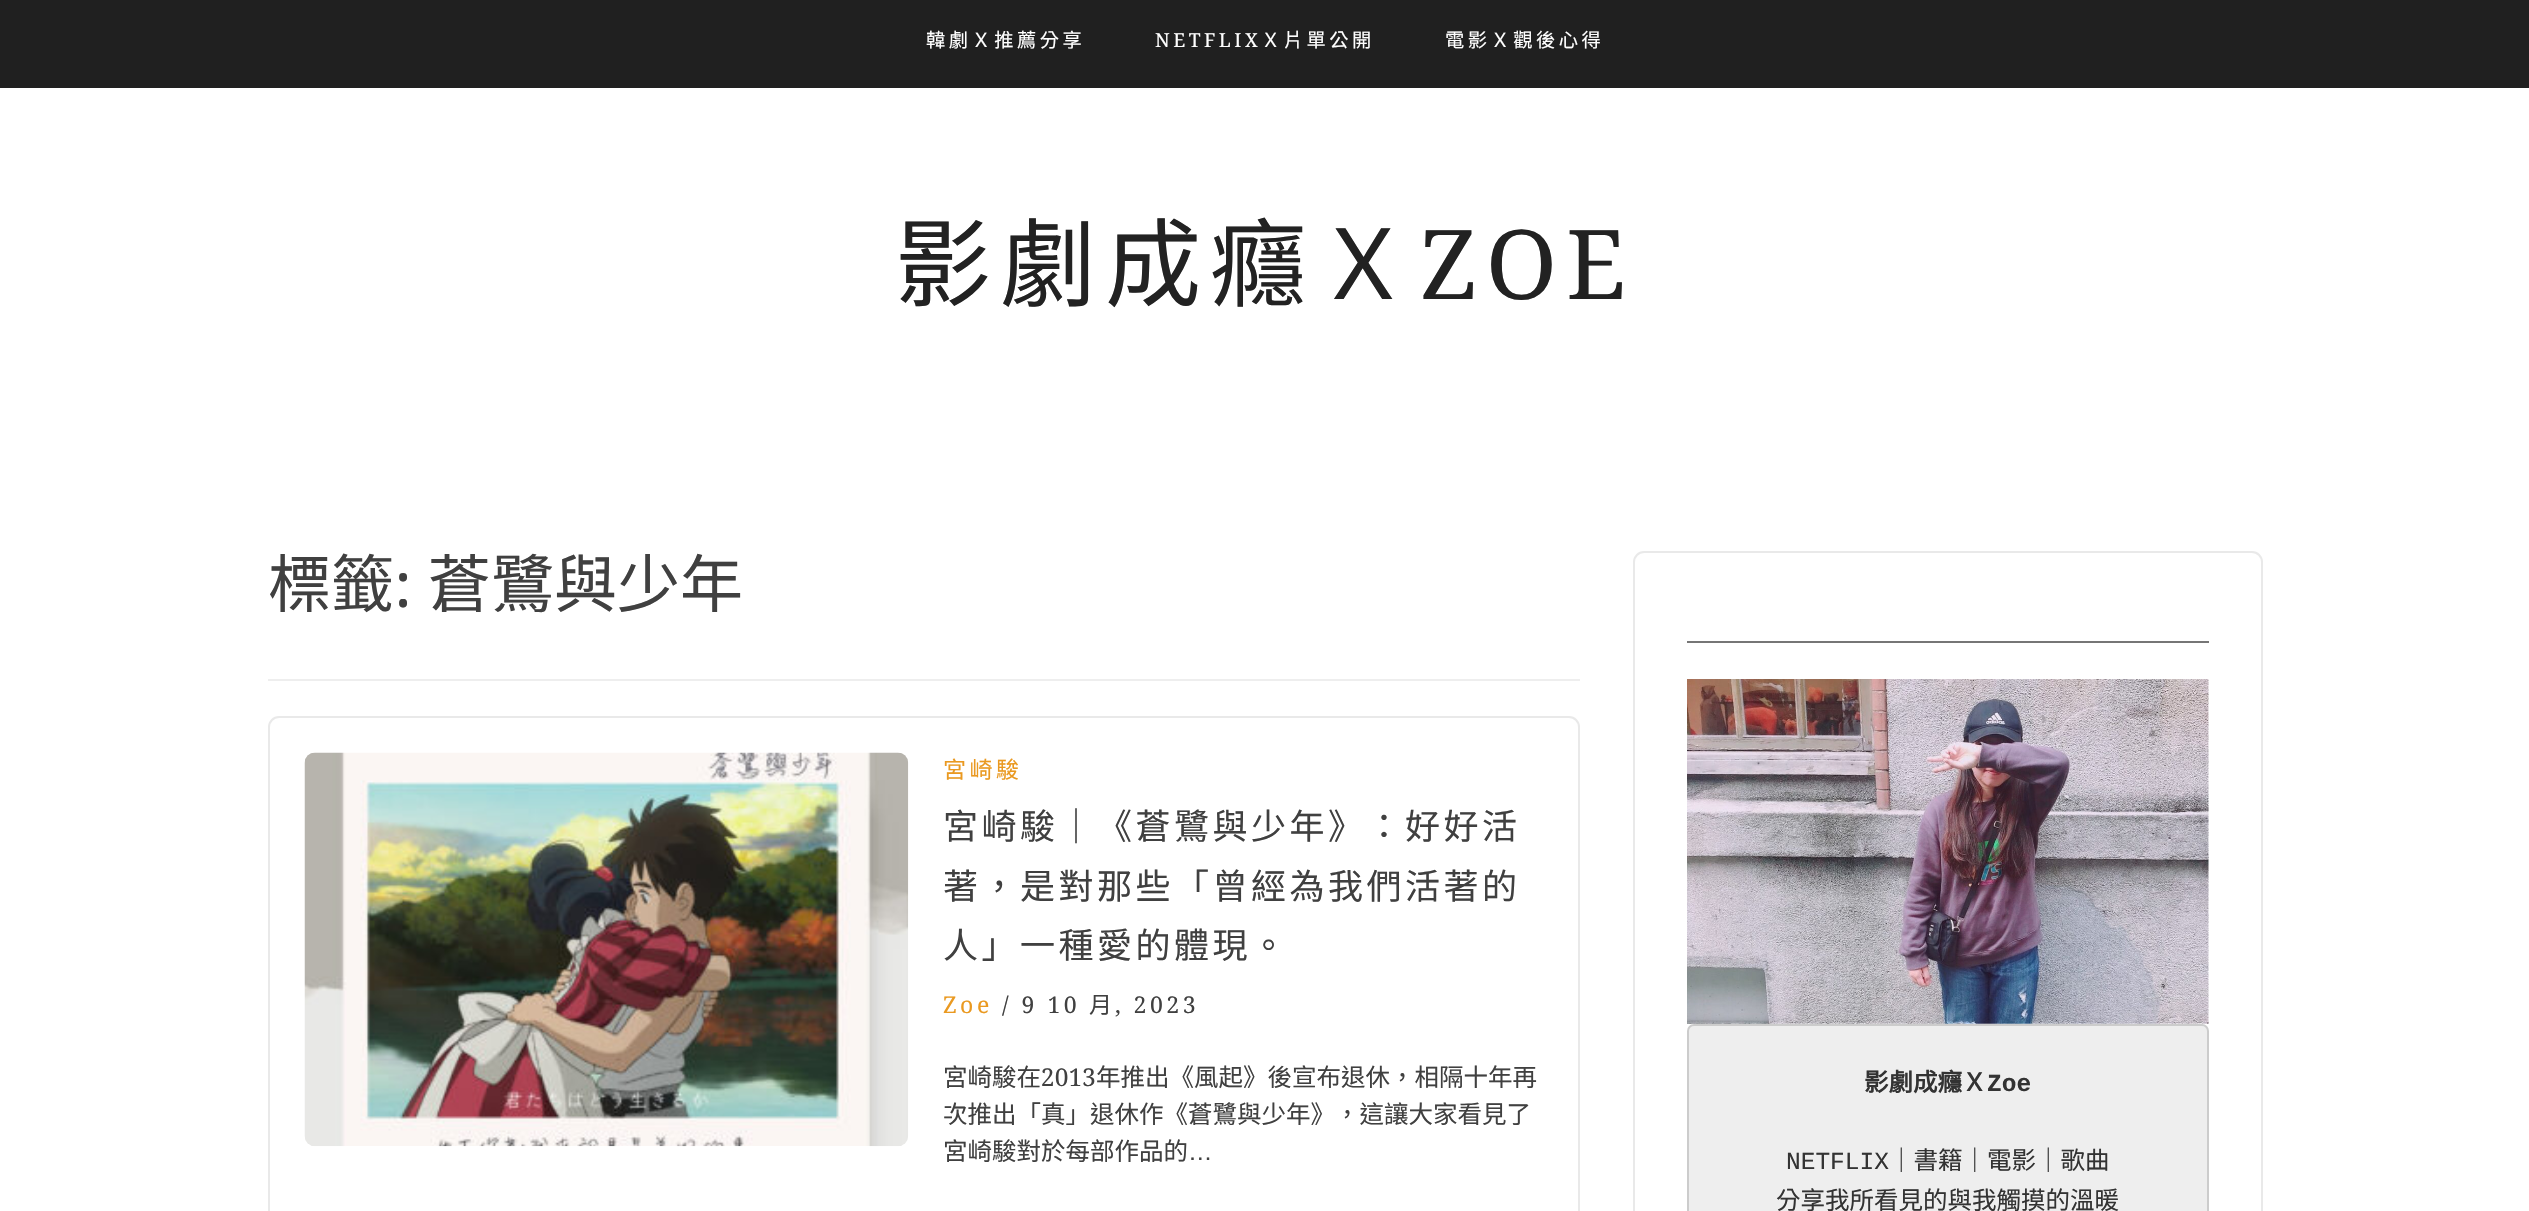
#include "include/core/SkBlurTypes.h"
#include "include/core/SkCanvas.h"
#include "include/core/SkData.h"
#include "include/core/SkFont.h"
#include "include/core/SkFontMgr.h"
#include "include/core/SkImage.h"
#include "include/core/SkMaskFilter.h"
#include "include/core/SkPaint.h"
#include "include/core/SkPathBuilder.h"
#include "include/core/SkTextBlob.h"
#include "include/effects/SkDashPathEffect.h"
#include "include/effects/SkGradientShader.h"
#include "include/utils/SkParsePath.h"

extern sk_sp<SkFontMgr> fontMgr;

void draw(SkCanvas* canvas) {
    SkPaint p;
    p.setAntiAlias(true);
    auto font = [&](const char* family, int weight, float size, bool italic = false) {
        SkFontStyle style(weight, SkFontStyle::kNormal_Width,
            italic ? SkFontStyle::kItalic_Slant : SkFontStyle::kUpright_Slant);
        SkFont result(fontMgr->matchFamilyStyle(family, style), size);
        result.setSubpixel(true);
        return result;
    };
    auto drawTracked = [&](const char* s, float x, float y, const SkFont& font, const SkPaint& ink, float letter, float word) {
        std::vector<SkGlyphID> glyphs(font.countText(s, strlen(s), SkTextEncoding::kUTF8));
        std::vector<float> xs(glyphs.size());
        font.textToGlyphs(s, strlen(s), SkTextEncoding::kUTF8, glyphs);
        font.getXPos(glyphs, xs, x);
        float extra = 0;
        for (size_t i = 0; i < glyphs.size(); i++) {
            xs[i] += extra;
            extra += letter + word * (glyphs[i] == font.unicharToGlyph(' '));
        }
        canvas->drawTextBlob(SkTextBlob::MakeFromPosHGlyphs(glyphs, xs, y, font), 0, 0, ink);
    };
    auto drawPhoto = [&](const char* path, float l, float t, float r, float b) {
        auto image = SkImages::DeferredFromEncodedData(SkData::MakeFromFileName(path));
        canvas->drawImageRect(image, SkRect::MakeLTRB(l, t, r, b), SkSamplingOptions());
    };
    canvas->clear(0xFFFFFFFF);
    p.setColor(0xFF202020);
    canvas->drawRect(SkRect::MakeLTRB(0, 0, 2529, 88), p);
    auto font1 = font("Noto Sans CJK TC", 400, 19.25f);
    p.setColor(0xFFFFFFFF);
    drawTracked("韓劇Ｘ推薦分享", 926, 47, font1, p, 3.5f, 0);
    auto font2 = font("Droid Serif", 400, 19.25f);
    drawTracked("NETFLIX", 1155, 47, font2, p, 3.5f, 0);
    drawTracked("Ｘ片單公開", 1261, 47, font1, p, 3.5f, 0);
    drawTracked("電影Ｘ觀後心得", 1445, 47, font1, p, 3.5f, 0);
    auto font3 = font("Noto Sans CJK TC", 400, 96.25f);
    p.setColor(0xFF222222);
    drawTracked("影劇成癮Ｘ", 895, 299, font3, p, 8.75f, 0);
    auto font4 = font("Droid Serif", 400, 96.25f);
    drawTracked("ZOE", 1420, 299, font4, p, 8.75f, 0);
    p.setColor(0xFFEEEEEE);
    canvas->drawRect(SkRect::MakeLTRB(268, 679, 1580, 681), p);
    auto font5 = font("Noto Sans CJK TC", 400, 63);
    p.setColor(0xFF404040);
    canvas->drawString("標籤", 268, 607, font5, p);
    auto font6 = font("Droid Serif", 400, 63);
    canvas->drawString(":", 394, 607, font6, p);
    canvas->drawString("蒼鷺與少年", 428, 607, font5, p);
    p.setStyle(SkPaint::kStroke_Style);
    p.setStrokeWidth(2);
    p.setColor(0xFFE9E9E9);
    canvas->drawRoundRect(SkRect::MakeLTRB(269, 717, 1579, 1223), 10, 10, p);
    drawPhoto("media/1.png", 304, 752, 909, 1147);
    auto font7 = font("Noto Sans CJK TC", 400, 23);
    p.setStyle(SkPaint::kFill_Style);
    p.setColor(0xFFEA9920);
    drawTracked("宮崎駿", 943, 778, font7, p, 3.5f, 0);
    auto font8 = font("Noto Sans CJK TC", 400, 35);
    p.setColor(0xFF404040);
    {
        const struct { const char* s; float x, y; } items[] = {
            {"宮崎駿｜《蒼鷺與少年》：好好活", 943, 839},
            {"著，是對那些「曾經為我們活著的", 943, 899},
            {"人」一種愛的體現。", 943, 958},
        };
        for (auto [s, x, y] : items) {
            drawTracked(s, x, y, font8, p, 3.5f, 0);
        }
    }
    auto font9 = font("Droid Serif", 400, 23);
    p.setColor(0xFFEA9920);
    drawTracked("Zoe", 943, 1013, font9, p, 3.5f, 0);
    p.setColor(0xFF404040);
    drawTracked("/ 9 10", 1002, 1013, font9, p, 3.5f, 0);
    drawTracked("月", 1089, 1013, font7, p, 3.5f, 0);
    drawTracked(", 2023", 1115, 1013, font9, p, 3.5f, 0);
    auto font10 = font("Noto Sans CJK TC", 400, 24.5f);
    canvas->drawString("宮崎駿在", 943, 1086, font10, p);
    auto font11 = font("Droid Serif", 400, 24.5f);
    canvas->drawString("2013", 1041, 1086, font11, p);
    {
        const struct { const char* s; float x, y; } items[] = {
            {"年推出《風起》後宣布退休，相隔十年再", 1096, 1086},
            {"次推出「真」退休作《蒼鷺與少年》，這讓大家看見了", 943, 1123},
            {"宮崎駿對於每部作品的", 943, 1160},
        };
        for (auto [s, x, y] : items) {
            canvas->drawString(s, x, y, font10, p);
        }
    }
    auto font12 = font("Liberation Sans", 400, 24.5f);
    canvas->drawString("…", 1188, 1160, font12, p);
    p.setStyle(SkPaint::kStroke_Style);
    p.setColor(0xFFE9E9E9);
    canvas->drawRoundRect(SkRect::MakeLTRB(1634, 552, 2262, 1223), 10, 10, p);
    p.setStyle(SkPaint::kFill_Style);
    p.setColor(0xFF767676);
    canvas->drawRect(SkRect::MakeLTRB(1687, 641, 2209, 643), p);
    drawPhoto("media/2.png", 1687, 679, 2209, 1024);
    p.setColor(0xFFEEEEEE);
    canvas->drawRoundRect(SkRect::MakeLTRB(1688, 1025, 2208, 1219), 6, 6, p);
    p.setStyle(SkPaint::kStroke_Style);
    p.setColor(0xFFCCCCCC);
    canvas->drawRoundRect(SkRect::MakeLTRB(1688, 1025, 2208, 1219), 6, 6, p);
    auto font13 = font("Noto Sans CJK TC", 700, 24.5f);
    p.setStyle(SkPaint::kFill_Style);
    p.setColor(0xFF333333);
    canvas->drawString("影劇成癮Ｘ", 1864, 1091, font13, p);
    auto font14 = font("Liberation Mono", 700, 24.5f);
    canvas->drawString("Zoe", 1987, 1091, font14, p);
    auto font15 = font("Liberation Mono", 400, 24.5f);
    canvas->drawString("NETFLIX", 1786, 1169, font15, p);
    canvas->drawString("｜書籍｜電影｜歌曲", 1889, 1169, font10, p);
    canvas->drawString("分享我所看見的與我觸摸的溫暖", 1776, 1209, font10, p);
}
